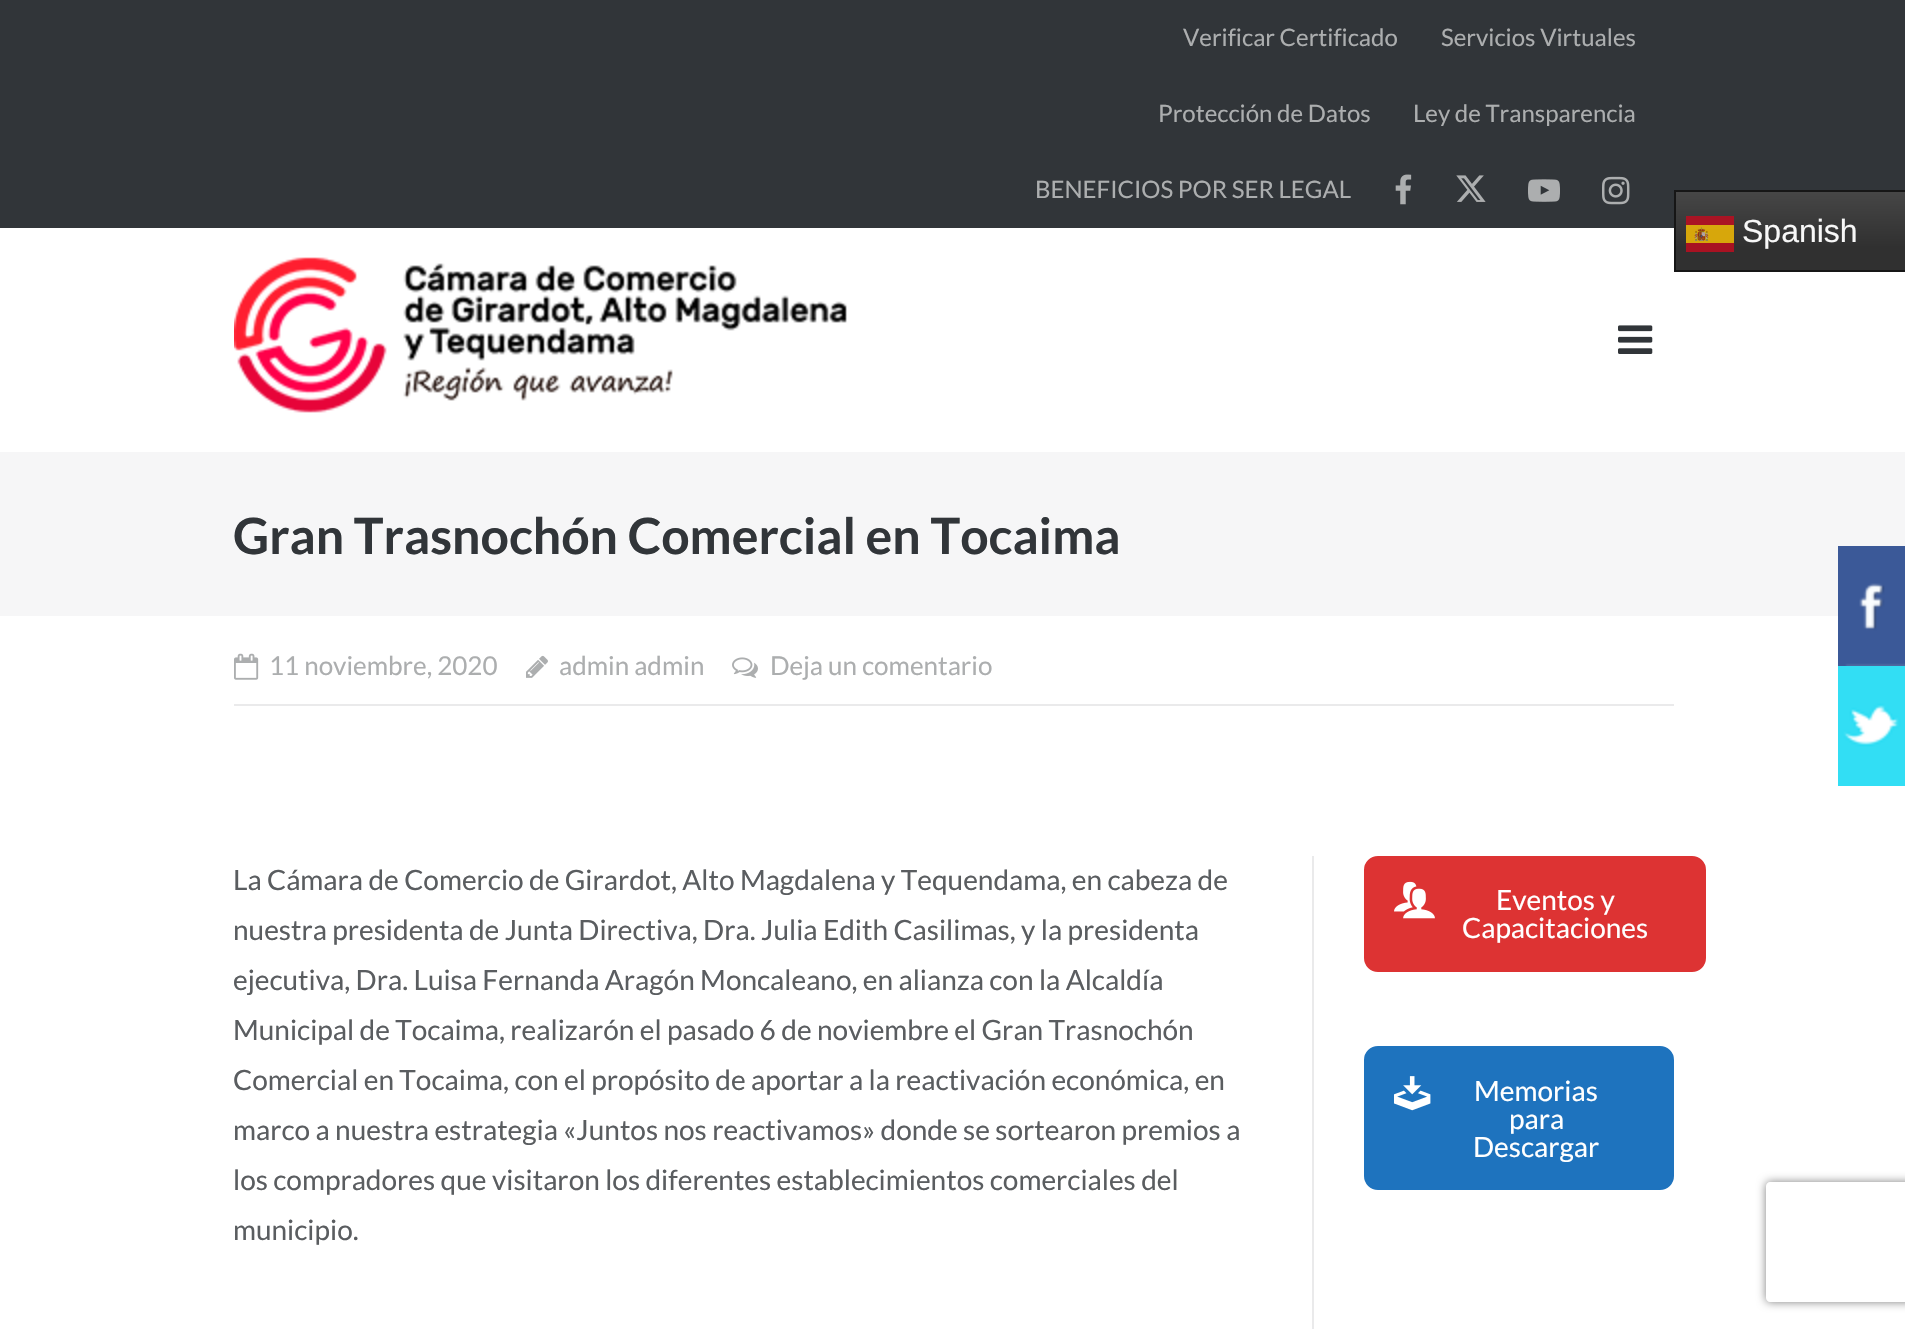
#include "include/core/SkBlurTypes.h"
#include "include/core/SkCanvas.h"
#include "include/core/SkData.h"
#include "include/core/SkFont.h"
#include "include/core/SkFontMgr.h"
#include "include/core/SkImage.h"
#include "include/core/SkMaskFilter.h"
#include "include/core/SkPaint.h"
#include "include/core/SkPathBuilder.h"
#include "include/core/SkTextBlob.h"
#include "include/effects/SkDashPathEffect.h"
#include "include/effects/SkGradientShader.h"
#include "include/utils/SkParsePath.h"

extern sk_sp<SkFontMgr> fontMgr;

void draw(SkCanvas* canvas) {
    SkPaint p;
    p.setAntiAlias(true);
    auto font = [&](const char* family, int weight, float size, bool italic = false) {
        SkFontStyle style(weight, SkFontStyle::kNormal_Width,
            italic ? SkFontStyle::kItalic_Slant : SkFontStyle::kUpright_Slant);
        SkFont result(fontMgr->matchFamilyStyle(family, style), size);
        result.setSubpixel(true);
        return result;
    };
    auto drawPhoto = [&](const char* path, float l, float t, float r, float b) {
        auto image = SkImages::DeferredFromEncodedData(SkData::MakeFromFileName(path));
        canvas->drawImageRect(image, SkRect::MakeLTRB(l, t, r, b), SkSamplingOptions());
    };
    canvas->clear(0xFFFFFFFF);
    p.setColor(0xFF313539);
    canvas->drawRect(SkRect::MakeLTRB(0, 0, 1905, 228), p);
    auto font1 = font("Lato", 400, 24);
    p.setColor(0xFFACAEAF);
    {
        const struct { const char* s; float x, y; } items[] = {
            {"Verificar Certificado", 1183, 46},
            {"Servicios Virtuales", 1441, 46},
            {"Protección de Datos", 1158, 122},
            {"Ley de Transparencia", 1413, 122},
            {"BENEFICIOS POR SER LEGAL", 1035, 198},
        };
        for (auto [s, x, y] : items) {
            canvas->drawString(s, x, y, font1, p);
        }
    }
    drawPhoto("media/1.png", 1395, 174, 1412, 205);
    drawPhoto("media/2.png", 1456, 175, 1486, 202);
    drawPhoto("media/3.png", 1528, 179, 1560, 202);
    drawPhoto("media/4.png", 1602, 176, 1630, 205);
    {
        const SkColor colors[] = {0xFF474747, 0xFF303030};
        const float stops[] = {0, 0.7f};
        const SkPoint ends[] = {{1847, 190}, {1847, 272}};
        p.setShader(SkGradientShader::MakeLinear(ends, colors, stops, 2, SkTileMode::kClamp));
        p.setAlpha(255);
    }
    canvas->drawRect(SkRect::MakeLTRB(1676, 192, 1905, 270), p);
    p.setStyle(SkPaint::kStroke_Style);
    p.setStrokeWidth(2);
    p.setShader(nullptr);
    p.setColor(0xFF161616);
    canvas->drawRect(SkRect::MakeLTRB(1675, 191, 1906, 271), p);
    drawPhoto("media/5.png", 1686, 216, 1734, 252);
    auto font2 = font("Liberation Sans", 400, 32);
    p.setStyle(SkPaint::kFill_Style);
    p.setColor(0xFFF7F7F7);
    canvas->drawString("Spanish", 1742, 242, font2, p);
    drawPhoto("media/6.png", 234, 257, 847, 413);
    drawPhoto("media/7.png", 1618, 325, 1653, 354);
    p.setColor(0xFFF6F6F7);
    canvas->drawRect(SkRect::MakeLTRB(0, 452, 1905, 616), p);
    auto font3 = font("Lato", 700, 50);
    p.setColor(0xFF313539);
    canvas->drawString("Gran Trasnochón Comercial en Tocaima", 233, 554, font3, p);
    p.setColor(0xFFEAEAEB);
    canvas->drawRect(SkRect::MakeLTRB(234, 704, 1674, 706), p);
    drawPhoto("media/8.png", 234, 653, 259, 680);
    auto font4 = font("Lato", 400, 26);
    p.setColor(0xFFACAEAF);
    canvas->drawString("11 noviembre, 2020", 269, 675, font4, p);
    drawPhoto("media/9.png", 526, 655, 548, 678);
    canvas->drawString("admin admin", 559, 675, font4, p);
    drawPhoto("media/10.png", 732, 657, 758, 678);
    canvas->drawString("Deja un comentario", 770, 675, font4, p);
    p.setColor(0xFFEAEAEB);
    canvas->drawRect(SkRect::MakeLTRB(1312, 856, 1314, 1329), p);
    auto font5 = font("Lato", 400, 28);
    p.setColor(0xFF5A5D60);
    {
        const struct { const char* s; float x, y; } items[] = {
            {"La Cámara de Comercio de Girardot, Alto Magdalena y Tequendama, en cabeza de", 233, 890},
            {"nuestra presidenta de Junta Directiva, Dra. Julia Edith Casilimas, y la presidenta", 233, 940},
            {"ejecutiva, Dra. Luisa Fernanda Aragón Moncaleano, en alianza con la Alcaldía", 233, 990},
            {"Municipal de Tocaima, realizarón el pasado 6 de noviembre el Gran Trasnochón", 233, 1040},
            {"Comercial en Tocaima, con el propósito de aportar a la reactivación económica, en", 233, 1090},
            {"marco a nuestra estrategia «Juntos nos reactivamos» donde se sortearon premios a", 233, 1140},
            {"los compradores que visitaron los diferentes establecimientos comerciales del", 233, 1190},
            {"municipio.", 233, 1240},
        };
        for (auto [s, x, y] : items) {
            canvas->drawString(s, x, y, font5, p);
        }
    }
    p.setColor(0xFFDD3333);
    canvas->drawRoundRect(SkRect::MakeLTRB(1365, 857, 1705, 971), 13, 13, p);
    p.setStyle(SkPaint::kStroke_Style);
    canvas->drawRoundRect(SkRect::MakeLTRB(1365, 857, 1705, 971), 13, 13, p);
    drawPhoto("media/11.png", 1394, 881, 1435, 919);
    p.setStyle(SkPaint::kFill_Style);
    p.setColor(0xFFFFFFFF);
    canvas->drawString("Eventos y", 1496, 910, font5, p);
    canvas->drawString("Capacitaciones", 1462, 938, font5, p);
    p.setColor(0xFF1E73BE);
    canvas->drawRoundRect(SkRect::MakeLTRB(1365, 1047, 1673, 1189), 13, 13, p);
    p.setStyle(SkPaint::kStroke_Style);
    canvas->drawRoundRect(SkRect::MakeLTRB(1365, 1047, 1673, 1189), 13, 13, p);
    drawPhoto("media/12.png", 1394, 1076, 1431, 1111);
    p.setStyle(SkPaint::kFill_Style);
    p.setColor(0xFFFFFFFF);
    {
        const struct { const char* s; float x, y; } items[] = {
            {"Memorias", 1474, 1101},
            {"para", 1509, 1129},
            {"Descargar", 1473, 1157},
        };
        for (auto [s, x, y] : items) {
            canvas->drawString(s, x, y, font5, p);
        }
    }
    drawPhoto("media/13.png", 1838, 546, 1905, 666);
    drawPhoto("media/14.png", 1838, 666, 1905, 786);
    canvas->save();
    canvas->clipPath(SkPathBuilder(SkPathFillType::kEvenOdd).moveTo(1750, 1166).lineTo(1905, 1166).lineTo(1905, 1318).lineTo(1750, 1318).close().moveTo(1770, 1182).lineTo(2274, 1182).cubicTo(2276, 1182, 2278, 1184, 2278, 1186).lineTo(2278, 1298).cubicTo(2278, 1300, 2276, 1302, 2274, 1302).lineTo(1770, 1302).cubicTo(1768, 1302, 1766, 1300, 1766, 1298).lineTo(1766, 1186).cubicTo(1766, 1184, 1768, 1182, 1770, 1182).close().detach(), true);
    p.setColor(0xFF808080);
    p.setMaskFilter(SkMaskFilter::MakeBlur(kNormal_SkBlurStyle, 5));
    canvas->drawRoundRect(SkRect::MakeLTRB(1766, 1182, 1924, 1302), 4, 4, p);
    p.setMaskFilter(nullptr);
    canvas->restore();
}
